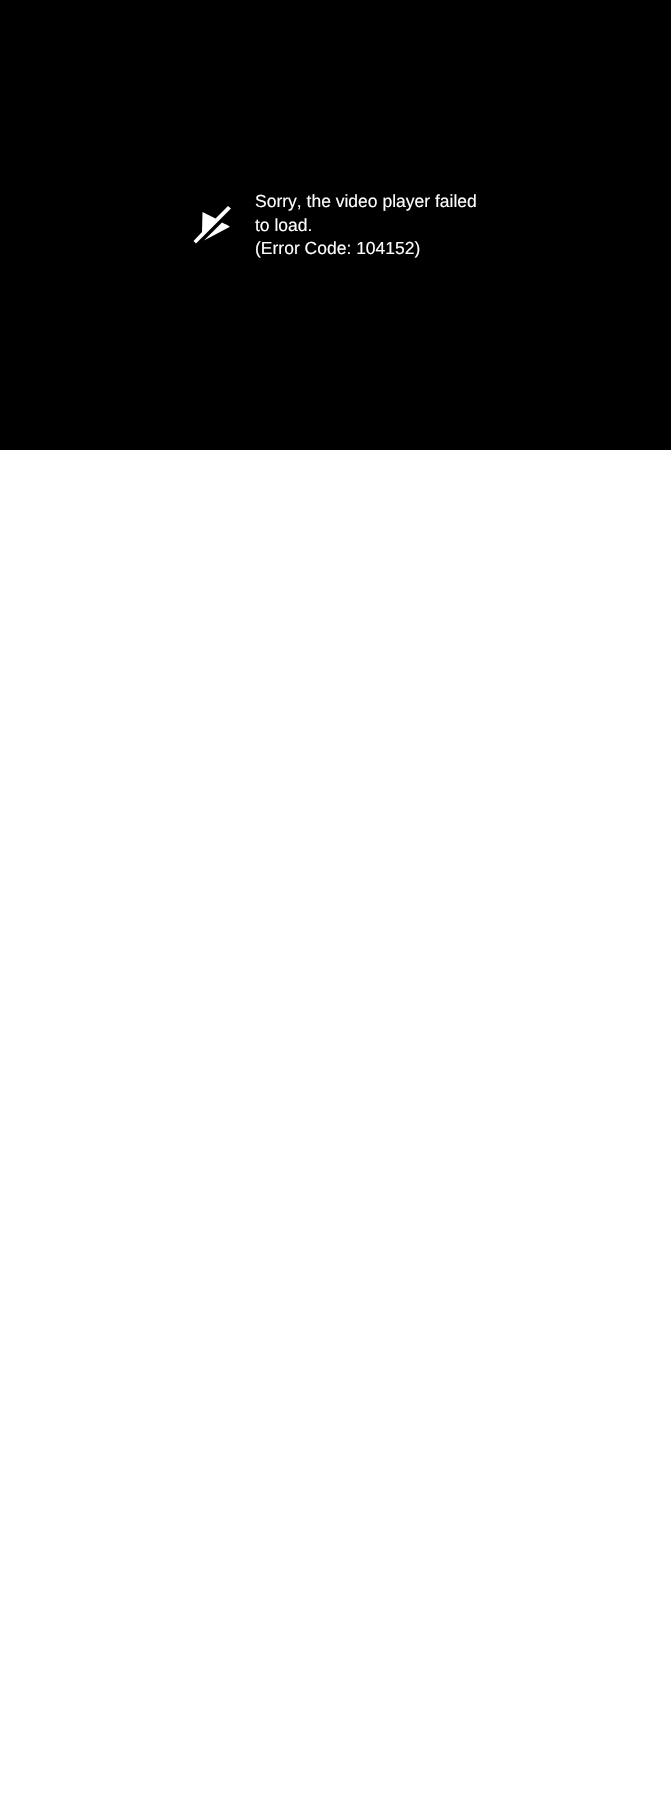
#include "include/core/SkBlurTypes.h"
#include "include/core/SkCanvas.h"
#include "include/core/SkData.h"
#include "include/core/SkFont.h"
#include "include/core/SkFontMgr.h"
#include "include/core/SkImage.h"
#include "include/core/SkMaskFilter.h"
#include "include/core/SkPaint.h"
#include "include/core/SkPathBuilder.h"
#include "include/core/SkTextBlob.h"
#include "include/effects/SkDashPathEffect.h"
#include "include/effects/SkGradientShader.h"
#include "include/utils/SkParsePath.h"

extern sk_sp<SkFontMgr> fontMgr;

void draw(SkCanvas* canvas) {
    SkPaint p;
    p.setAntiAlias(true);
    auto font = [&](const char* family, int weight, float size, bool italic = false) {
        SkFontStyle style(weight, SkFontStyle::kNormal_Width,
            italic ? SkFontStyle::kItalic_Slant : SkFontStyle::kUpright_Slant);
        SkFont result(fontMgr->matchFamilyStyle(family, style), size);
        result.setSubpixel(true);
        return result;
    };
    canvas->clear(0xFFFFFFFF);
    p.setColor(0xFF000000);
    canvas->drawRect(SkRect::MakeLTRB(0, 0, 671, 450), p);
    p.setColor(0xFFFFFFFF);
    canvas->drawPath(SkPathBuilder().moveTo(229.5f, 227).lineTo(204, 240.5f).lineTo(222, 222.5f).cubicTo(229, 226, 230.5f, 226.5f, 229.5f, 227).close().moveTo(228, 206).lineTo(215.5f, 218.5f).lineTo(202.5f, 212).lineTo(202, 232).lineTo(193.5f, 241).lineTo(196, 243.5f).lineTo(231, 208.5f).close().detach(), p);
    auto font1 = font("Liberation Sans", 400, 17.5f);
    {
        const struct { const char* s; float x, y; } items[] = {
            {"Sorry, the video player failed", 255, 207},
            {"to load.", 255, 231},
            {"(Error Code: 104152)", 255, 254},
        };
        for (auto [s, x, y] : items) {
            canvas->drawString(s, x, y, font1, p);
        }
    }
}
